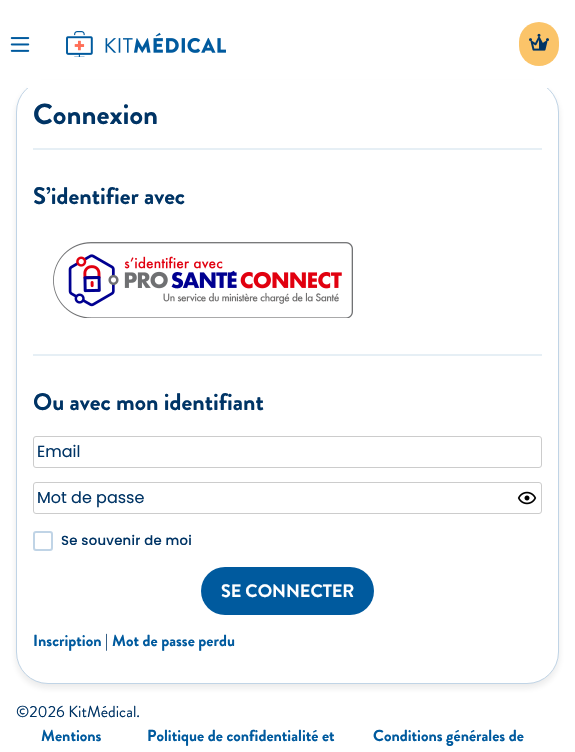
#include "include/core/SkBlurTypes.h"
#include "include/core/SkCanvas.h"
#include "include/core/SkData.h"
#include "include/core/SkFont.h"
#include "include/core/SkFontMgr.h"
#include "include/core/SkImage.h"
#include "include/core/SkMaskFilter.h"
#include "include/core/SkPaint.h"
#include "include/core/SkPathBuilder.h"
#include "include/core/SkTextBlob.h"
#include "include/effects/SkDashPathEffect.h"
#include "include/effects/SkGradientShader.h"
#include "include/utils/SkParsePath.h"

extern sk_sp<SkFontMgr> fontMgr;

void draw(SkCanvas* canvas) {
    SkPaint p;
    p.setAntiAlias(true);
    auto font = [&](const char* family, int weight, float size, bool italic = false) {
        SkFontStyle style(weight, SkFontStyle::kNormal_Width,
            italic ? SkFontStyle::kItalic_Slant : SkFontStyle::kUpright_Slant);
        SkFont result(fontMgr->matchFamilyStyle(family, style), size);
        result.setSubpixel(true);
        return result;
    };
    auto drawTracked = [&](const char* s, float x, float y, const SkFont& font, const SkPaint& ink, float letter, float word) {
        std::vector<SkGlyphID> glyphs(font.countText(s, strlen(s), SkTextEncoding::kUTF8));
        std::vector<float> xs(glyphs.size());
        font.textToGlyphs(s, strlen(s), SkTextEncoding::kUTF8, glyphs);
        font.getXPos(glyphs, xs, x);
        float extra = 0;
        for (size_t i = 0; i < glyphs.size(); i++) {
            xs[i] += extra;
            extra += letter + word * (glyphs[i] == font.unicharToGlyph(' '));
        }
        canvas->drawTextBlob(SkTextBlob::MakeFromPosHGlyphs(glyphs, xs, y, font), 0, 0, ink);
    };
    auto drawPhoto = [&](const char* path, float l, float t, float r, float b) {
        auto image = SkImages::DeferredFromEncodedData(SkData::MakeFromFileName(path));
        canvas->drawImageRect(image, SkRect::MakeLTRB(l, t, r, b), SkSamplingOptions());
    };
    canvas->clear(0xFFFFFFFF);
    p.setColor(0x1714151A);
    p.setMaskFilter(SkMaskFilter::MakeBlur(kNormal_SkBlurStyle, 3));
    canvas->drawRoundRect(SkRect::MakeLTRB(16, 84, 559, 688), 32, 32, p);
    p.setMaskFilter(nullptr);
    p.setColor(0xFFFFFFFF);
    canvas->drawRoundRect(SkRect::MakeLTRB(16.5f, 80.5f, 558.5f, 683.5f), 31.5f, 31.5f, p);
    p.setStyle(SkPaint::kStroke_Style);
    p.setStrokeWidth(1);
    p.setColor(0xFFC0D4E6);
    canvas->drawRoundRect(SkRect::MakeLTRB(16.5f, 80.5f, 558.5f, 683.5f), 31.5f, 31.5f, p);
    p.setStyle(SkPaint::kFill_Style);
    p.setColor(0xFFFFFFFF);
    canvas->drawRect(SkRect::MakeLTRB(27, 80, 549, 88), p);
    drawPhoto("media/1.png", 10, 37, 30, 52);
    drawPhoto("media/2.png", 66, 31, 226, 57);
    p.setColor(0xFFFBC469);
    canvas->drawRoundRect(SkRect::MakeLTRB(519, 22, 559, 66), 20, 20, p);
    drawPhoto("media/3.png", 529, 33, 549, 51);
    auto font1 = font("Brandon Grotesque", 700, 29);
    p.setColor(0xFF003465);
    canvas->drawString("Connexion", 33, 124, font1, p);
    p.setColor(0xFFE6EFF5);
    canvas->drawRect(SkRect::MakeLTRB(33, 148, 542, 150), p);
    auto font2 = font("Brandon Grotesque", 700, 24);
    p.setColor(0xFF003465);
    canvas->drawString("S’identifier avec", 33, 204, font2, p);
    drawPhoto("media/4.png", 53, 242, 353, 318);
    p.setColor(0xFFE6EFF5);
    canvas->drawRect(SkRect::MakeLTRB(33, 354, 542, 356), p);
    p.setColor(0xFF003465);
    canvas->drawString("Ou avec mon identifiant", 33, 410, font2, p);
    p.setStyle(SkPaint::kStroke_Style);
    p.setColor(0xFFCCCCCC);
    canvas->drawRoundRect(SkRect::MakeLTRB(33.5f, 436.5f, 541.5f, 467.5f), 2.5f, 2.5f, p);
    auto font3 = font("Poppins", 400, 16);
    p.setStyle(SkPaint::kFill_Style);
    p.setColor(0xFF003465);
    canvas->drawString("Email", 37, 457, font3, p);
    p.setStyle(SkPaint::kStroke_Style);
    p.setColor(0xFFCCCCCC);
    canvas->drawRoundRect(SkRect::MakeLTRB(33.5f, 482.5f, 541.5f, 513.5f), 2.5f, 2.5f, p);
    p.setStyle(SkPaint::kFill_Style);
    p.setColor(0xFF003465);
    canvas->drawString("Mot de passe", 37, 503, font3, p);
    drawPhoto("media/5.png", 517, 491, 537, 505);
    p.setStyle(SkPaint::kStroke_Style);
    p.setStrokeWidth(2);
    p.setColor(0xFFC0D4E6);
    canvas->drawRoundRect(SkRect::MakeLTRB(34, 532, 52, 550), 2, 2, p);
    auto font4 = font("Poppins", 500, 13.25f);
    p.setStyle(SkPaint::kFill_Style);
    p.setColor(0xFF003465);
    drawTracked("Se souvenir de moi", 61, 545, font4, p, 0.25f, 0);
    p.setColor(0xFF005A9E);
    canvas->drawRoundRect(SkRect::MakeLTRB(201, 567, 374, 615), 24, 24, p);
    auto font5 = font("Brandon Grotesque", 700, 18);
    p.setColor(0xFFFFFFFF);
    canvas->drawString("SE CONNECTER", 221, 597, font5, p);
    auto font6 = font("Brandon Grotesque", 700, 16);
    p.setColor(0xFF005A9E);
    canvas->drawString("Inscription", 33, 646, font6, p);
    auto font7 = font("Brandon Grotesque", 400, 16);
    p.setColor(0xFF003465);
    canvas->drawString("|", 105, 646, font7, p);
    p.setColor(0xFF005A9E);
    canvas->drawString("Mot de passe perdu", 112, 646, font6, p);
    p.setColor(0xFF003465);
    canvas->drawString("©2026 KitMédical.", 16, 717, font7, p);
    p.setColor(0xFF005A9E);
    {
        const struct { const char* s; float x, y; } items[] = {
            {"Mentions", 41, 741},
            {"Politique de confidentialité et", 147, 741},
            {"Conditions générales de", 373, 741},
        };
        for (auto [s, x, y] : items) {
            canvas->drawString(s, x, y, font6, p);
        }
    }
}
